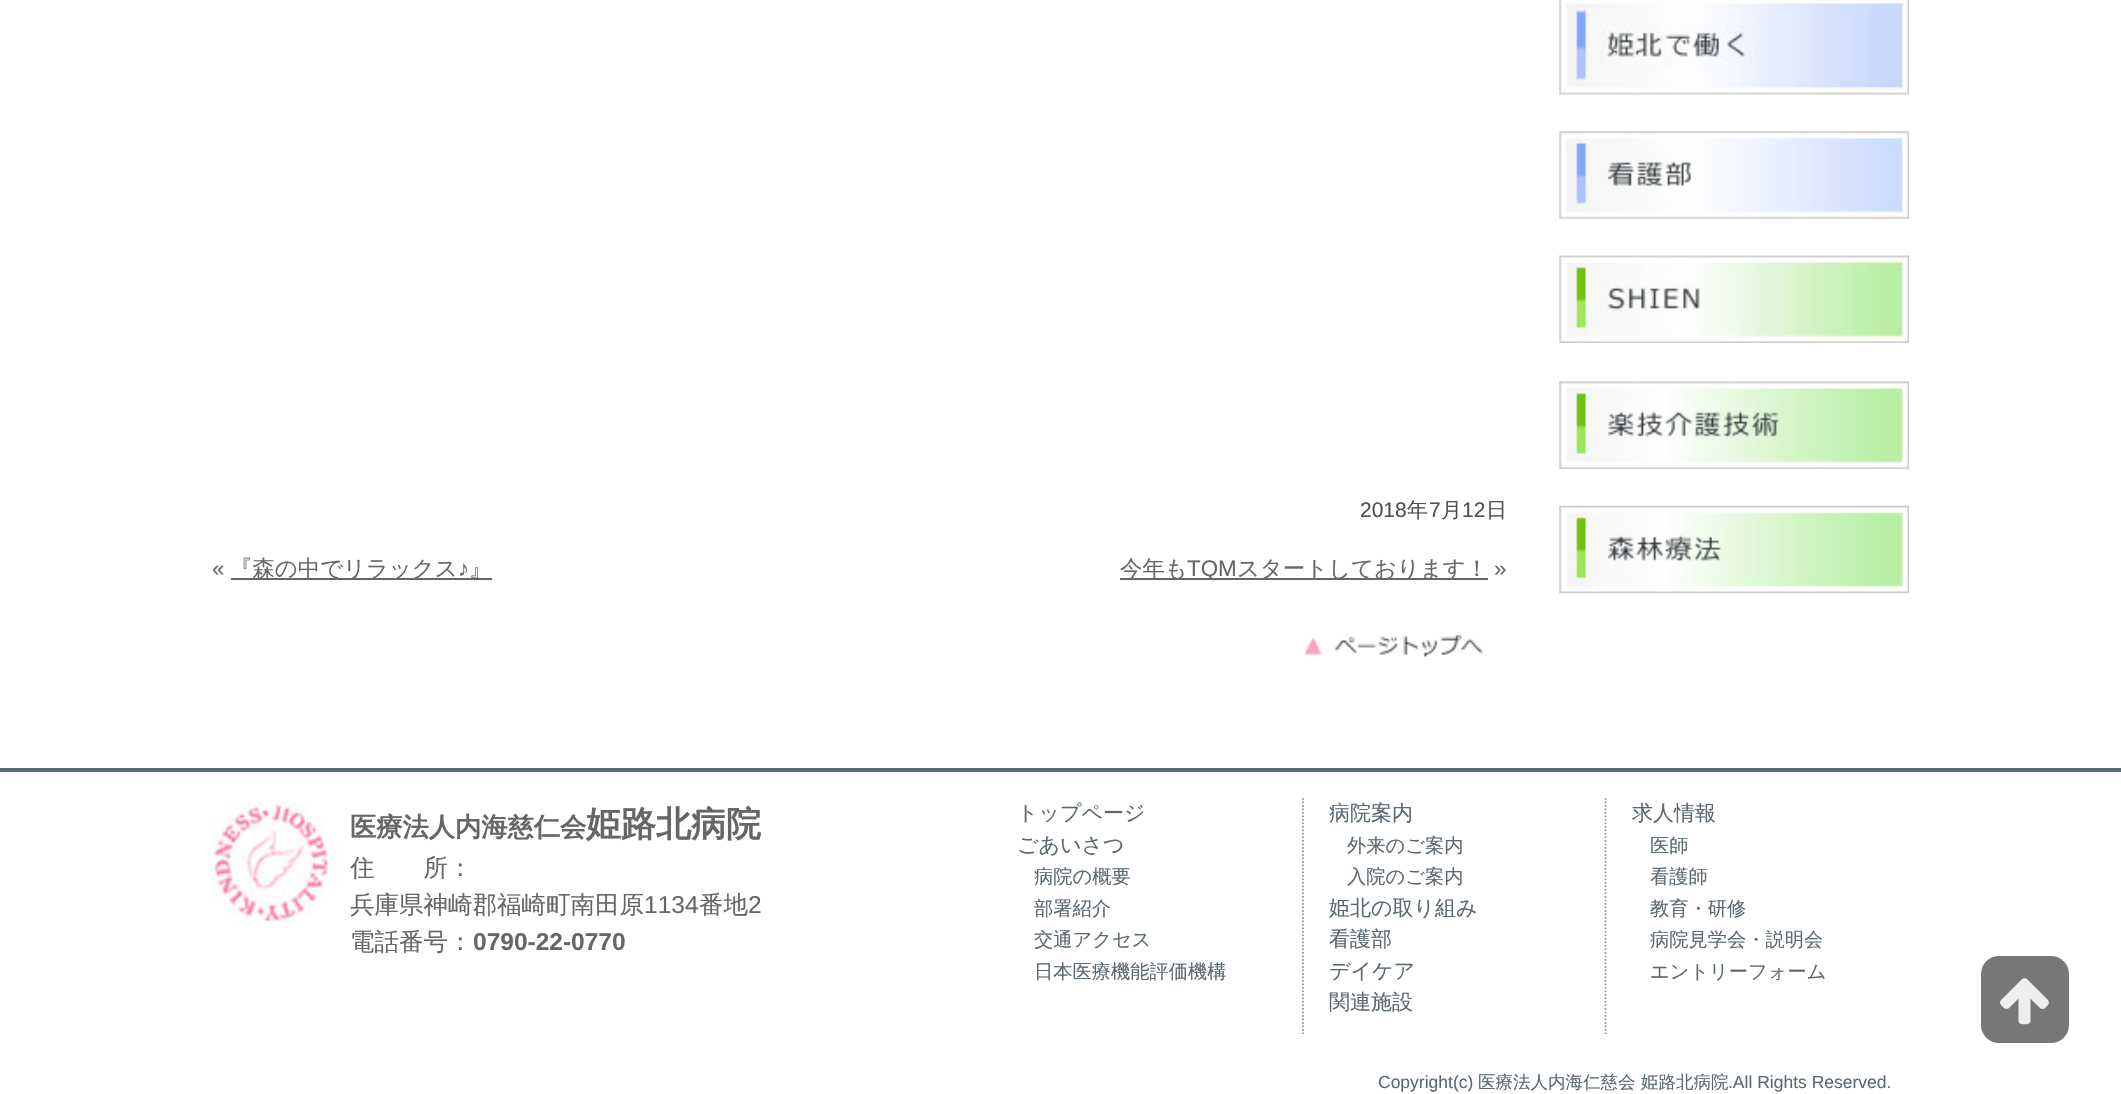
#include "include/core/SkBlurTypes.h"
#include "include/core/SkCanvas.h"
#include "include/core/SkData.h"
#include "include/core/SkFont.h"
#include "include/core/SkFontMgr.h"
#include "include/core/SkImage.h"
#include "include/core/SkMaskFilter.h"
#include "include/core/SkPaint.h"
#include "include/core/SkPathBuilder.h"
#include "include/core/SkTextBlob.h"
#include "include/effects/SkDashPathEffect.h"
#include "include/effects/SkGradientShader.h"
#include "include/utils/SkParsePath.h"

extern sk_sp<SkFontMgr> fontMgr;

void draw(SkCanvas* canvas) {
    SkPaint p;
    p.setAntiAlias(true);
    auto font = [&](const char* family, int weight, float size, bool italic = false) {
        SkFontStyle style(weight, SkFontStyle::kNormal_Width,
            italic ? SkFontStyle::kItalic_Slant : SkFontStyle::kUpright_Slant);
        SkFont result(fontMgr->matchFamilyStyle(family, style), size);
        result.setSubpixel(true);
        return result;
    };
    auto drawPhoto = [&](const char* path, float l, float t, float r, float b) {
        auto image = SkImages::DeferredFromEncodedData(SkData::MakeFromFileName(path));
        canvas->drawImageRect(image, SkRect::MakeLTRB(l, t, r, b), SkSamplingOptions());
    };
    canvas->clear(0xFFFFFFFF);
    auto font1 = font("Liberation Sans", 400, 21);
    p.setColor(0xFF4F4F4F);
    canvas->drawString("2018", 1360, 517, font1, p);
    auto font2 = font("WenQuanYi Zen Hei", 500, 21);
    canvas->drawString("年", 1407, 517, font2, p);
    canvas->drawString("7", 1429, 517, font1, p);
    canvas->drawString("月", 1441, 517, font2, p);
    canvas->drawString("12", 1462, 517, font1, p);
    canvas->drawString("日", 1486, 517, font2, p);
    auto font3 = font("Liberation Sans", 400, 22.4f);
    p.setColor(0xFF666666);
    canvas->drawString("«", 212, 576, font3, p);
    canvas->drawRect(SkRect::MakeLTRB(231, 578, 492, 580), p);
    auto font4 = font("WenQuanYi Zen Hei", 500, 22.4f);
    canvas->drawString("『森の中でリラックス", 230, 576, font4, p);
    canvas->drawString("♪", 458, 576, font3, p);
    canvas->drawString("』", 469, 576, font4, p);
    canvas->drawRect(SkRect::MakeLTRB(1120, 578, 1488, 580), p);
    canvas->drawString("今年も", 1120, 576, font4, p);
    canvas->drawString("TQM", 1187, 576, font3, p);
    canvas->drawString("スタートしております！", 1237, 576, font4, p);
    canvas->drawString("»", 1494, 576, font3, p);
    drawPhoto("media/1.png", 1303, 634, 1483, 657);
    drawPhoto("media/2.png", 1559, 0, 1910, 95);
    drawPhoto("media/3.png", 1559, 131, 1909, 219);
    drawPhoto("media/4.png", 1559, 255, 1910, 343);
    drawPhoto("media/5.png", 1559, 381, 1909, 469);
    drawPhoto("media/6.png", 1559, 505, 1909, 594);
    p.setColor(0xFF5A6870);
    canvas->drawRect(SkRect::MakeLTRB(0, 768, 2121, 772), p);
    drawPhoto("media/7.png", 212, 803, 338, 923);
    auto font5 = font("WenQuanYi Zen Hei", 700, 26.25f);
    p.setColor(0xFF666666);
    canvas->drawString("医療法人内海慈仁会", 350, 836, font5, p);
    auto font6 = font("WenQuanYi Zen Hei", 700, 35);
    canvas->drawString("姫路北病院", 586, 836, font6, p);
    auto font7 = font("WenQuanYi Zen Hei", 500, 24.5f);
    canvas->drawString("住　　所：", 350, 876, font7, p);
    canvas->drawString("兵庫県神崎郡福崎町南田原", 350, 913, font7, p);
    auto font8 = font("Liberation Sans", 400, 24.5f);
    canvas->drawString("1134", 644, 913, font8, p);
    canvas->drawString("番地", 699, 913, font7, p);
    canvas->drawString("2", 748, 913, font8, p);
    canvas->drawString("電話番号：", 350, 950, font7, p);
    auto font9 = font("Liberation Sans", 700, 24.5f);
    canvas->drawString("0790-22-0770", 473, 950, font9, p);
    p.setStyle(SkPaint::kStroke_Style);
    p.setStrokeWidth(1.8f);
    p.setColor(0xFF8B9AA3);
    p.setPathEffect(SkDashPathEffect::Make({{1.75f, 1.75f}}, 0));
    canvas->drawPath(SkPathBuilder().moveTo(1303, 798).lineTo(1303, 1034).detach(), p);
    p.setPathEffect(nullptr);
    p.setStyle(SkPaint::kFill_Style);
    p.setColor(0xFF5A6870);
    canvas->drawString("トップページ", 1017, 820, font2, p);
    canvas->drawString("ごあいさつ", 1017, 852, font2, p);
    auto font10 = font("WenQuanYi Zen Hei", 500, 19.25f);
    {
        const struct { const char* s; float x, y; } items[] = {
            {"病院の概要", 1034, 883},
            {"部署紹介", 1034, 915},
            {"交通アクセス", 1034, 946},
            {"日本医療機能評価機構", 1034, 978},
        };
        for (auto [s, x, y] : items) {
            canvas->drawString(s, x, y, font10, p);
        }
    }
    p.setStyle(SkPaint::kStroke_Style);
    p.setColor(0xFF8B9AA3);
    p.setPathEffect(SkDashPathEffect::Make({{1.75f, 1.75f}}, 0));
    canvas->drawPath(SkPathBuilder().moveTo(1605.5f, 798).lineTo(1605.5f, 1034).detach(), p);
    p.setPathEffect(nullptr);
    p.setStyle(SkPaint::kFill_Style);
    p.setColor(0xFF5A6870);
    canvas->drawString("病院案内", 1329, 820, font2, p);
    canvas->drawString("外来のご案内", 1347, 852, font10, p);
    canvas->drawString("入院のご案内", 1347, 883, font10, p);
    {
        const struct { const char* s; float x, y; } items[] = {
            {"姫北の取り組み", 1329, 915},
            {"看護部", 1329, 946},
            {"デイケア", 1329, 978},
            {"関連施設", 1329, 1009},
            {"求人情報", 1632, 820},
        };
        for (auto [s, x, y] : items) {
            canvas->drawString(s, x, y, font2, p);
        }
    }
    {
        const struct { const char* s; float x, y; } items[] = {
            {"医師", 1650, 852},
            {"看護師", 1650, 883},
            {"教育・研修", 1650, 915},
            {"病院見学会・説明会", 1650, 946},
            {"エントリーフォーム", 1650, 978},
        };
        for (auto [s, x, y] : items) {
            canvas->drawString(s, x, y, font10, p);
        }
    }
    auto font11 = font("Liberation Sans", 400, 17.5f);
    canvas->drawString("Copyright(c)", 1378, 1088, font11, p);
    auto font12 = font("WenQuanYi Zen Hei", 500, 17.5f);
    canvas->drawString("医療法人内海仁慈会", 1478, 1088, font12, p);
    canvas->drawString("姫路北病院", 1641, 1088, font12, p);
    canvas->drawString(".All Rights Reserved.", 1728, 1088, font11, p);
    p.setColor(0xFF777777);
    canvas->drawRoundRect(SkRect::MakeLTRB(1981, 956, 2069, 1043), 18, 18, p);
    drawPhoto("media/8.png", 2000, 978, 2049, 1025);
}
